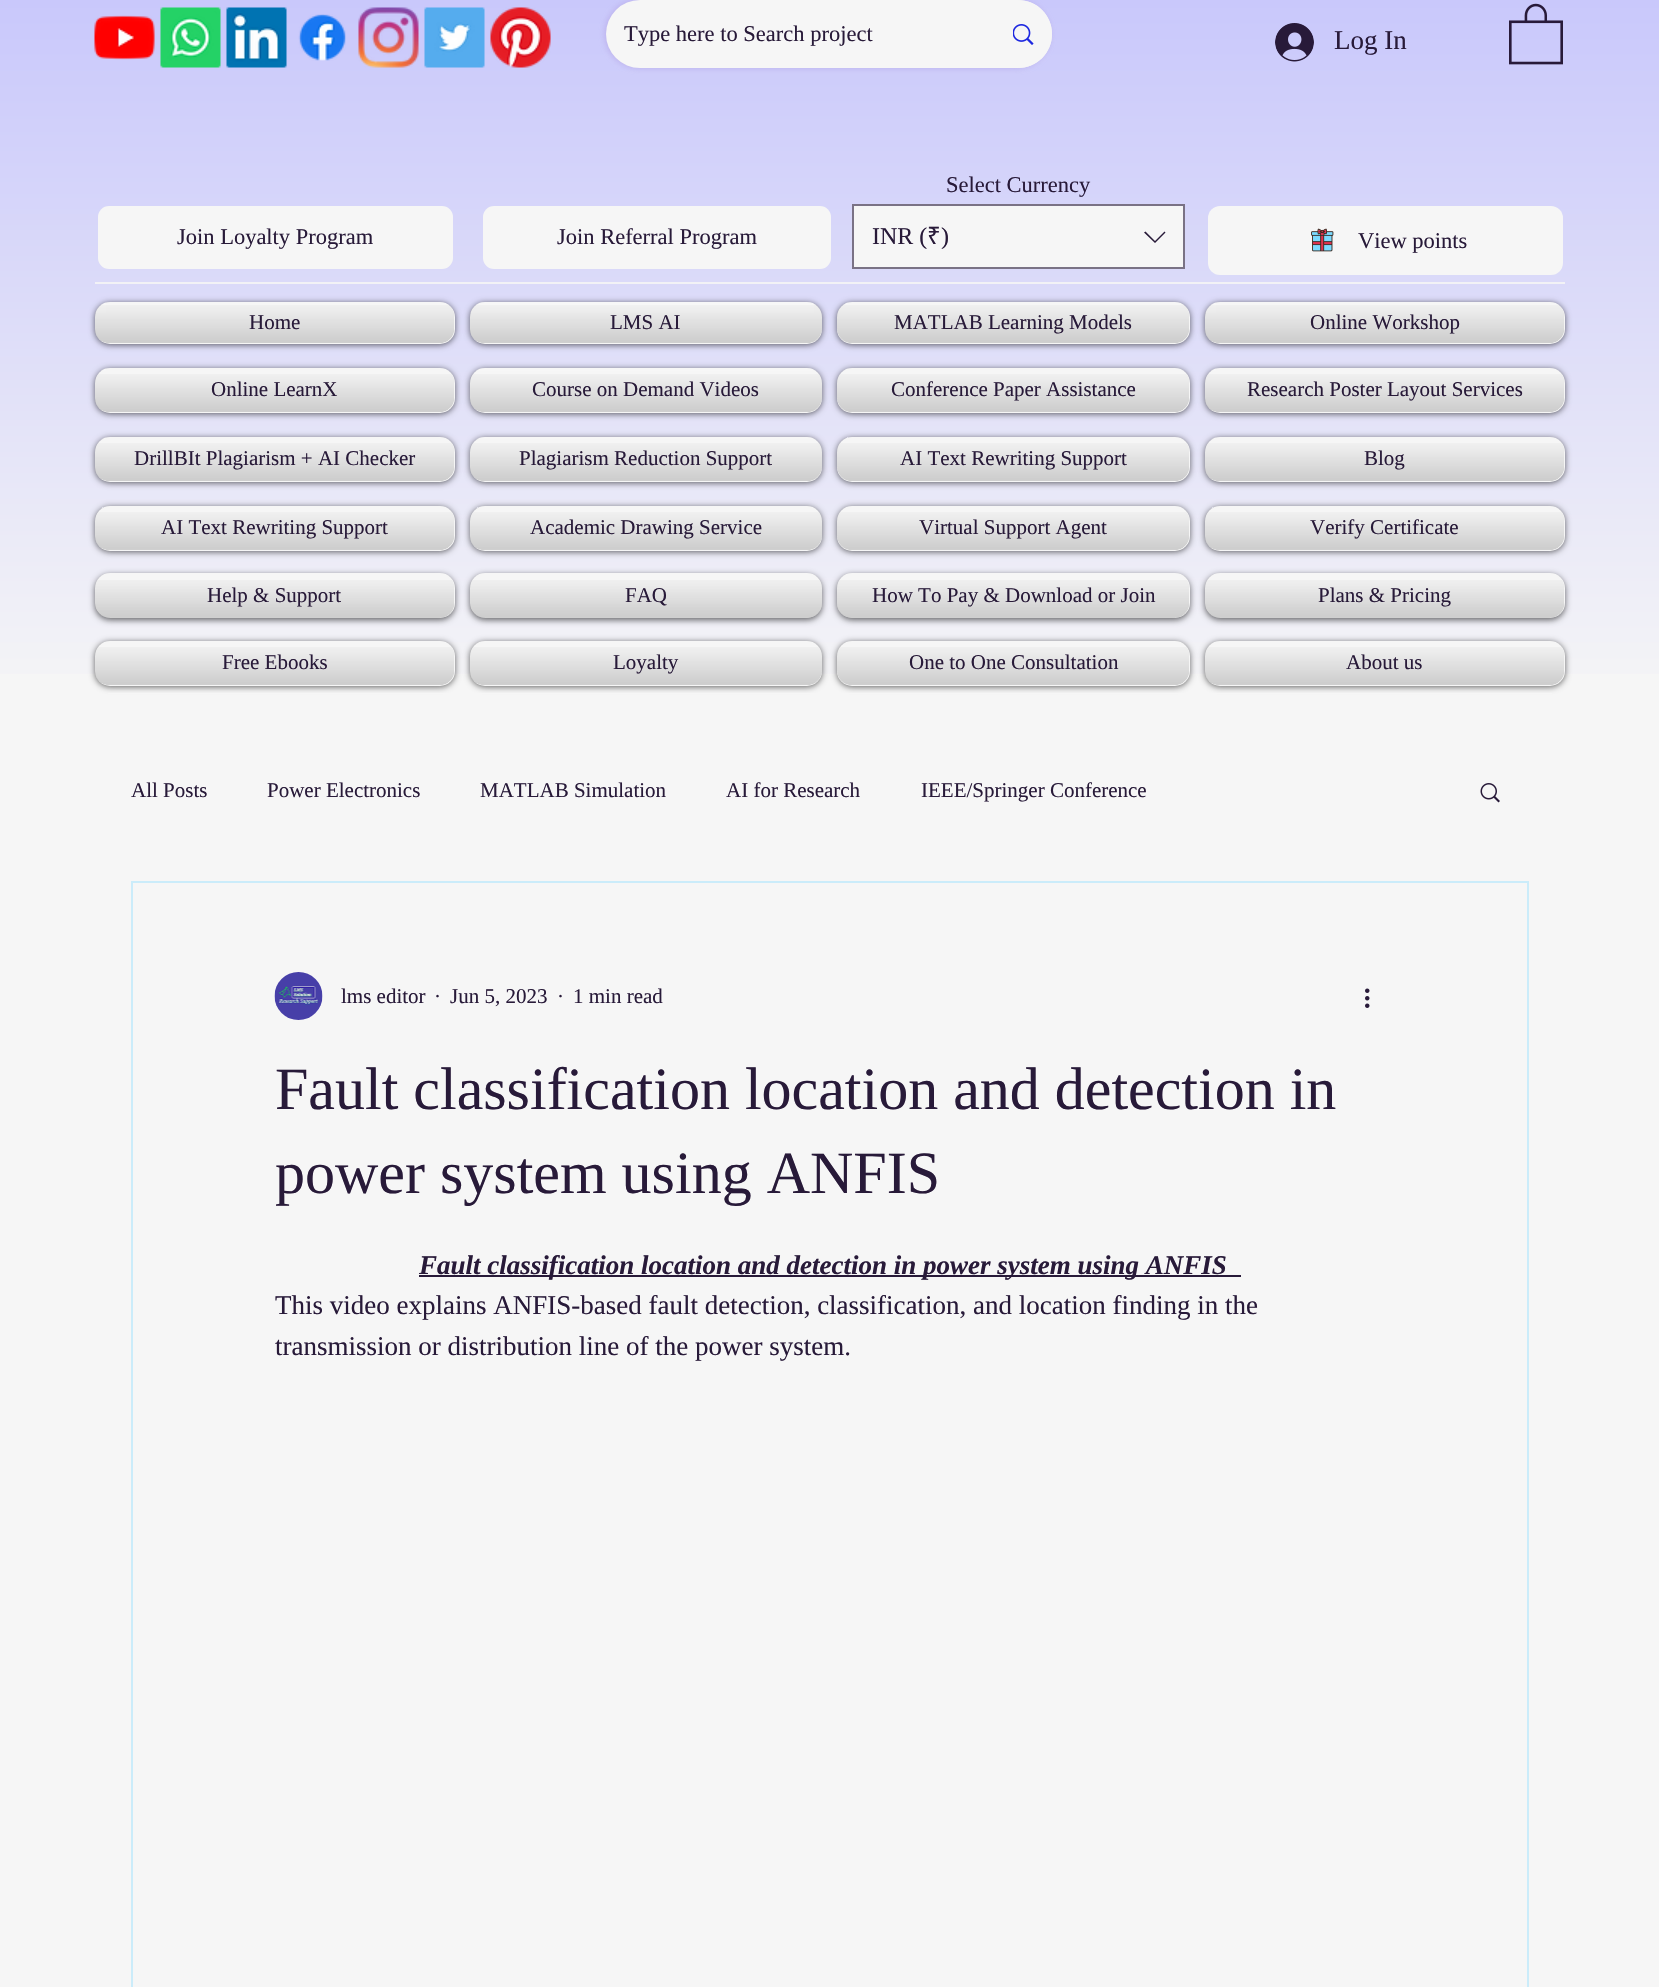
#include "include/core/SkBlurTypes.h"
#include "include/core/SkCanvas.h"
#include "include/core/SkData.h"
#include "include/core/SkFont.h"
#include "include/core/SkFontMgr.h"
#include "include/core/SkImage.h"
#include "include/core/SkMaskFilter.h"
#include "include/core/SkPaint.h"
#include "include/core/SkPathBuilder.h"
#include "include/core/SkTextBlob.h"
#include "include/effects/SkDashPathEffect.h"
#include "include/effects/SkGradientShader.h"
#include "include/utils/SkParsePath.h"

extern sk_sp<SkFontMgr> fontMgr;

void draw(SkCanvas* canvas) {
    SkPaint p;
    p.setAntiAlias(true);
    auto font = [&](const char* family, int weight, float size, bool italic = false) {
        SkFontStyle style(weight, SkFontStyle::kNormal_Width,
            italic ? SkFontStyle::kItalic_Slant : SkFontStyle::kUpright_Slant);
        SkFont result(fontMgr->matchFamilyStyle(family, style), size);
        result.setSubpixel(true);
        return result;
    };
    auto drawPhoto = [&](const char* path, float l, float t, float r, float b) {
        auto image = SkImages::DeferredFromEncodedData(SkData::MakeFromFileName(path));
        canvas->drawImageRect(image, SkRect::MakeLTRB(l, t, r, b), SkSamplingOptions());
    };
    canvas->clear(0xFFF6F6F6);
    {
        const SkColor colors[] = {0xFFF6F6F6, 0xFFC9C8FB};
        const float stops[] = {0, 1};
        const SkPoint ends[] = {{830, 713}, {830, 0}};
        p.setShader(SkGradientShader::MakeLinear(ends, colors, stops, 2, SkTileMode::kClamp));
        p.setAlpha(255);
    }
    canvas->drawRect(SkRect::MakeLTRB(0, 0, 1659, 674), p);
    drawPhoto("media/1.png", 94, 15, 155, 60);
    drawPhoto("media/2.png", 160, 7, 221, 68);
    drawPhoto("media/3.png", 226, 7, 287, 68);
    drawPhoto("media/4.png", 298, 14, 346, 61);
    drawPhoto("media/5.png", 358, 7, 419, 68);
    drawPhoto("media/6.png", 424, 7, 485, 68);
    drawPhoto("media/7.png", 490, 7, 551, 68);
    p.setShader(nullptr);
    p.setColor(0x99AF9DE0);
    p.setMaskFilter(SkMaskFilter::MakeBlur(kNormal_SkBlurStyle, 3));
    canvas->drawRoundRect(SkRect::MakeLTRB(605, 0, 1050, 68), 34, 34, p);
    p.setMaskFilter(nullptr);
    p.setColor(0xFFF6F6F6);
    canvas->drawRoundRect(SkRect::MakeLTRB(606, 0, 1052, 68), 34, 34, p);
    auto font1 = font("Liberation Serif", 400, 22.5f);
    p.setColor(0xFF281A39);
    canvas->drawString("Type here to Search project", 624, 41, font1, p);
    p.setColor(0xFFF6F6F6);
    canvas->drawPath(SkPathBuilder().moveTo(995, 0).lineTo(1018, 0).cubicTo(1037, 0, 1052, 15, 1052, 34).cubicTo(1052, 53, 1037, 68, 1018, 68).lineTo(995, 68).close().detach(), p);
    drawPhoto("media/8.png", 1013, 24, 1034, 45);
    drawPhoto("media/9.png", 1275, 23, 1314, 62);
    auto font2 = font("Liberation Serif", 400, 27);
    p.setColor(0xFF281A39);
    canvas->drawString("Log In", 1334, 49, font2, p);
    drawPhoto("media/10.png", 1509, 3, 1563, 65);
    canvas->drawString("Select Currency", 946, 192, font1, p);
    p.setColor(0xFFF6F6F6);
    canvas->drawRoundRect(SkRect::MakeLTRB(98, 206, 453, 269), 11, 11, p);
    p.setColor(0xFF281A39);
    canvas->drawString("Join Loyalty Program", 177, 244, font1, p);
    p.setColor(0xFFF6F6F6);
    canvas->drawRoundRect(SkRect::MakeLTRB(483, 206, 831, 269), 11, 11, p);
    p.setColor(0xFF281A39);
    canvas->drawString("Join Referral Program", 557, 244, font1, p);
    p.setColor(0xFFF6F6F6);
    canvas->drawRect(SkRect::MakeLTRB(853, 205, 1184, 268), p);
    p.setStyle(SkPaint::kStroke_Style);
    p.setStrokeWidth(2);
    p.setColor(0xFF7A7285);
    canvas->drawRect(SkRect::MakeLTRB(853, 205, 1184, 268), p);
    auto font3 = font("Liberation Serif", 400, 24);
    p.setStyle(SkPaint::kFill_Style);
    p.setColor(0xFF281A39);
    canvas->drawString("INR (", 872, 244, font3, p);
    auto font4 = font("Noto Sans", 400, 24);
    canvas->drawString("₹", 927, 244, font4, p);
    canvas->drawString(")", 941, 244, font3, p);
    canvas->drawPath(SkPathBuilder(SkPathFillType::kEvenOdd).moveTo(1164.5f, 231.5f).lineTo(1165.5f, 232.5f).lineTo(1155, 243).lineTo(1144, 232.5f).lineTo(1145.5f, 231.5f).lineTo(1155, 241).close().detach(), p);
    p.setColor(0xFFF6F6F6);
    canvas->drawRoundRect(SkRect::MakeLTRB(1208, 206, 1563, 275), 12, 12, p);
    drawPhoto("media/11.png", 1311, 228, 1334, 252);
    p.setColor(0xFF281A39);
    canvas->drawString("View points", 1358, 248, font1, p);
    p.setColor(0xFFF2F2F6);
    canvas->drawRect(SkRect::MakeLTRB(95, 282, 1565, 284), p);
    p.setColor(0x99000000);
    p.setMaskFilter(SkMaskFilter::MakeBlur(kNormal_SkBlurStyle, 3));
    canvas->drawRoundRect(SkRect::MakeLTRB(95, 303, 455, 345), 15, 15, p);
    p.setMaskFilter(nullptr);
    p.setColor(0xFFF6F6F6);
    canvas->drawRoundRect(SkRect::MakeLTRB(95, 302, 455, 344), 15, 15, p);
    drawPhoto("media/12.png", 95, 302, 106, 313);
    drawPhoto("media/13.png", 95, 305, 454, 343);
    auto font5 = font("Liberation Serif", 400, 21);
    p.setColor(0xFF281A39);
    canvas->drawString("Home", 249, 329, font5, p);
    p.setColor(0x99000000);
    p.setMaskFilter(SkMaskFilter::MakeBlur(kNormal_SkBlurStyle, 3));
    canvas->drawRoundRect(SkRect::MakeLTRB(470, 303, 822, 345), 15, 15, p);
    p.setMaskFilter(nullptr);
    p.setColor(0xFFF6F6F6);
    canvas->drawRoundRect(SkRect::MakeLTRB(470, 302, 822, 344), 15, 15, p);
    drawPhoto("media/14.png", 470, 302, 814, 313);
    drawPhoto("media/15.png", 470, 305, 822, 343);
    p.setColor(0xFF281A39);
    canvas->drawString("LMS AI", 610, 329, font5, p);
    p.setColor(0x99000000);
    p.setMaskFilter(SkMaskFilter::MakeBlur(kNormal_SkBlurStyle, 3));
    canvas->drawRoundRect(SkRect::MakeLTRB(837, 303, 1190, 345), 15, 15, p);
    p.setMaskFilter(nullptr);
    p.setColor(0xFFF6F6F6);
    canvas->drawRoundRect(SkRect::MakeLTRB(837, 302, 1190, 344), 15, 15, p);
    drawPhoto("media/16.png", 845, 302, 848, 304);
    drawPhoto("media/17.png", 837, 305, 1189, 343);
    p.setColor(0xFF281A39);
    canvas->drawString("MATLAB Learning Models", 894, 329, font5, p);
    p.setColor(0x99000000);
    p.setMaskFilter(SkMaskFilter::MakeBlur(kNormal_SkBlurStyle, 3));
    canvas->drawRoundRect(SkRect::MakeLTRB(1205, 303, 1565, 345), 15, 15, p);
    p.setMaskFilter(nullptr);
    p.setColor(0xFFF6F6F6);
    canvas->drawRoundRect(SkRect::MakeLTRB(1205, 302, 1565, 344), 15, 15, p);
    drawPhoto("media/12.png", 1205, 302, 1216, 313);
    drawPhoto("media/13.png", 1205, 305, 1564, 343);
    p.setColor(0xFF281A39);
    canvas->drawString("Online Workshop", 1310, 329, font5, p);
    p.setColor(0x99000000);
    p.setMaskFilter(SkMaskFilter::MakeBlur(kNormal_SkBlurStyle, 3));
    canvas->drawRoundRect(SkRect::MakeLTRB(95, 369, 455, 414), 15, 15, p);
    p.setMaskFilter(nullptr);
    p.setColor(0xFFF6F6F6);
    canvas->drawRoundRect(SkRect::MakeLTRB(95, 368, 455, 413), 15, 15, p);
    drawPhoto("media/18.png", 101, 368, 106, 371);
    drawPhoto("media/19.png", 95, 374, 454, 412);
    p.setColor(0xFF281A39);
    canvas->drawString("Online LearnX", 211, 396, font5, p);
    p.setColor(0x99000000);
    p.setMaskFilter(SkMaskFilter::MakeBlur(kNormal_SkBlurStyle, 3));
    canvas->drawRoundRect(SkRect::MakeLTRB(470, 369, 822, 414), 15, 15, p);
    p.setMaskFilter(nullptr);
    p.setColor(0xFFF6F6F6);
    canvas->drawRoundRect(SkRect::MakeLTRB(470, 368, 822, 413), 15, 15, p);
    drawPhoto("media/20.png", 476, 368, 812, 371);
    drawPhoto("media/21.png", 470, 374, 822, 412);
    p.setColor(0xFF281A39);
    canvas->drawString("Course on Demand Videos", 532, 396, font5, p);
    p.setColor(0x99000000);
    p.setMaskFilter(SkMaskFilter::MakeBlur(kNormal_SkBlurStyle, 3));
    canvas->drawRoundRect(SkRect::MakeLTRB(837, 369, 1190, 414), 15, 15, p);
    p.setMaskFilter(nullptr);
    p.setColor(0xFFF6F6F6);
    canvas->drawRoundRect(SkRect::MakeLTRB(837, 368, 1190, 413), 15, 15, p);
    drawPhoto("media/22.png", 845, 368, 848, 370);
    drawPhoto("media/23.png", 837, 374, 1189, 412);
    p.setColor(0xFF281A39);
    canvas->drawString("Conference Paper Assistance", 891, 396, font5, p);
    p.setColor(0x99000000);
    p.setMaskFilter(SkMaskFilter::MakeBlur(kNormal_SkBlurStyle, 3));
    canvas->drawRoundRect(SkRect::MakeLTRB(1205, 369, 1565, 414), 15, 15, p);
    p.setMaskFilter(nullptr);
    p.setColor(0xFFF6F6F6);
    canvas->drawRoundRect(SkRect::MakeLTRB(1205, 368, 1565, 413), 15, 15, p);
    drawPhoto("media/18.png", 1211, 368, 1216, 371);
    drawPhoto("media/19.png", 1205, 374, 1564, 412);
    p.setColor(0xFF281A39);
    canvas->drawString("Research Poster Layout Services", 1247, 396, font5, p);
    p.setColor(0x99000000);
    p.setMaskFilter(SkMaskFilter::MakeBlur(kNormal_SkBlurStyle, 3));
    canvas->drawRoundRect(SkRect::MakeLTRB(95, 438, 455, 483), 15, 15, p);
    p.setMaskFilter(nullptr);
    p.setColor(0xFFF6F6F6);
    canvas->drawRoundRect(SkRect::MakeLTRB(95, 437, 455, 482), 15, 15, p);
    drawPhoto("media/24.png", 102, 437, 106, 439);
    drawPhoto("media/25.png", 95, 443, 454, 481);
    p.setColor(0xFF281A39);
    canvas->drawString("DrillBIt Plagiarism + AI Checker", 134, 465, font5, p);
    p.setColor(0x99000000);
    p.setMaskFilter(SkMaskFilter::MakeBlur(kNormal_SkBlurStyle, 3));
    canvas->drawRoundRect(SkRect::MakeLTRB(470, 438, 822, 483), 15, 15, p);
    p.setMaskFilter(nullptr);
    p.setColor(0xFFF6F6F6);
    canvas->drawRoundRect(SkRect::MakeLTRB(470, 437, 822, 482), 15, 15, p);
    drawPhoto("media/26.png", 477, 437, 812, 439);
    drawPhoto("media/27.png", 470, 443, 822, 481);
    p.setColor(0xFF281A39);
    canvas->drawString("Plagiarism Reduction Support", 519, 465, font5, p);
    p.setColor(0x99000000);
    p.setMaskFilter(SkMaskFilter::MakeBlur(kNormal_SkBlurStyle, 3));
    canvas->drawRoundRect(SkRect::MakeLTRB(837, 438, 1190, 483), 15, 15, p);
    p.setMaskFilter(nullptr);
    p.setColor(0xFFF6F6F6);
    canvas->drawRoundRect(SkRect::MakeLTRB(837, 437, 1190, 482), 15, 15, p);
    p.setColor(0xFFE5E4F1);
    canvas->drawRect(SkRect::MakeLTRB(847, 437, 848, 438), p);
    drawPhoto("media/28.png", 837, 443, 1189, 481);
    p.setColor(0xFF281A39);
    canvas->drawString("AI Text Rewriting Support", 900, 465, font5, p);
    p.setColor(0x99000000);
    p.setMaskFilter(SkMaskFilter::MakeBlur(kNormal_SkBlurStyle, 3));
    canvas->drawRoundRect(SkRect::MakeLTRB(1205, 438, 1565, 483), 15, 15, p);
    p.setMaskFilter(nullptr);
    p.setColor(0xFFF6F6F6);
    canvas->drawRoundRect(SkRect::MakeLTRB(1205, 437, 1565, 482), 15, 15, p);
    drawPhoto("media/24.png", 1212, 437, 1216, 439);
    drawPhoto("media/25.png", 1205, 443, 1564, 481);
    p.setColor(0xFF281A39);
    canvas->drawString("Blog", 1364, 465, font5, p);
    p.setColor(0x99000000);
    p.setMaskFilter(SkMaskFilter::MakeBlur(kNormal_SkBlurStyle, 3));
    canvas->drawRoundRect(SkRect::MakeLTRB(95, 507, 455, 552), 15, 15, p);
    p.setMaskFilter(nullptr);
    p.setColor(0xFFF6F6F6);
    canvas->drawRoundRect(SkRect::MakeLTRB(95, 506, 455, 551), 15, 15, p);
    p.setColor(0xFFE1E1EC);
    canvas->drawRect(SkRect::MakeLTRB(102, 507, 103, 508), p);
    drawPhoto("media/29.png", 95, 512, 454, 550);
    p.setColor(0xFF281A39);
    canvas->drawString("AI Text Rewriting Support", 161, 534, font5, p);
    p.setColor(0x99000000);
    p.setMaskFilter(SkMaskFilter::MakeBlur(kNormal_SkBlurStyle, 3));
    canvas->drawRoundRect(SkRect::MakeLTRB(470, 507, 822, 552), 15, 15, p);
    p.setMaskFilter(nullptr);
    p.setColor(0xFFF6F6F6);
    canvas->drawRoundRect(SkRect::MakeLTRB(470, 506, 822, 551), 15, 15, p);
    p.setColor(0xFFE1E1EC);
    canvas->drawRect(SkRect::MakeLTRB(477, 507, 478, 508), p);
    drawPhoto("media/30.png", 470, 512, 822, 550);
    p.setColor(0xFF281A39);
    canvas->drawString("Academic Drawing Service", 530, 534, font5, p);
    p.setColor(0x99000000);
    p.setMaskFilter(SkMaskFilter::MakeBlur(kNormal_SkBlurStyle, 3));
    canvas->drawRoundRect(SkRect::MakeLTRB(837, 507, 1190, 552), 15, 15, p);
    p.setMaskFilter(nullptr);
    p.setColor(0xFFF6F6F6);
    canvas->drawRoundRect(SkRect::MakeLTRB(837, 506, 1190, 551), 15, 15, p);
    drawPhoto("media/31.png", 837, 512, 1189, 550);
    p.setColor(0xFF281A39);
    canvas->drawString("Virtual Support Agent", 919, 534, font5, p);
    p.setColor(0x99000000);
    p.setMaskFilter(SkMaskFilter::MakeBlur(kNormal_SkBlurStyle, 3));
    canvas->drawRoundRect(SkRect::MakeLTRB(1205, 507, 1565, 552), 15, 15, p);
    p.setMaskFilter(nullptr);
    p.setColor(0xFFF6F6F6);
    canvas->drawRoundRect(SkRect::MakeLTRB(1205, 506, 1565, 551), 15, 15, p);
    p.setColor(0xFFE1E1EC);
    canvas->drawRect(SkRect::MakeLTRB(1212, 507, 1213, 508), p);
    drawPhoto("media/29.png", 1205, 512, 1564, 550);
    p.setColor(0xFF281A39);
    canvas->drawString("Verify Certificate", 1310, 534, font5, p);
    p.setColor(0x99000000);
    p.setMaskFilter(SkMaskFilter::MakeBlur(kNormal_SkBlurStyle, 3));
    canvas->drawRoundRect(SkRect::MakeLTRB(95, 575, 455, 620), 15, 15, p);
    p.setMaskFilter(nullptr);
    p.setColor(0xFFF6F6F6);
    canvas->drawRoundRect(SkRect::MakeLTRB(95, 573, 455, 618), 15, 15, p);
    drawPhoto("media/32.png", 95, 580, 454, 618);
    p.setColor(0xFF281A39);
    canvas->drawString("Help & Support", 207, 602, font5, p);
    p.setColor(0x99000000);
    p.setMaskFilter(SkMaskFilter::MakeBlur(kNormal_SkBlurStyle, 3));
    canvas->drawRoundRect(SkRect::MakeLTRB(470, 575, 822, 620), 15, 15, p);
    p.setMaskFilter(nullptr);
    p.setColor(0xFFF6F6F6);
    canvas->drawRoundRect(SkRect::MakeLTRB(470, 573, 822, 618), 15, 15, p);
    drawPhoto("media/33.png", 470, 580, 822, 618);
    p.setColor(0xFF281A39);
    canvas->drawString("FAQ", 625, 602, font5, p);
    p.setColor(0x99000000);
    p.setMaskFilter(SkMaskFilter::MakeBlur(kNormal_SkBlurStyle, 3));
    canvas->drawRoundRect(SkRect::MakeLTRB(837, 575, 1190, 620), 15, 15, p);
    p.setMaskFilter(nullptr);
    p.setColor(0xFFF6F6F6);
    canvas->drawRoundRect(SkRect::MakeLTRB(837, 573, 1190, 618), 15, 15, p);
    drawPhoto("media/34.png", 837, 580, 1189, 618);
    p.setColor(0xFF281A39);
    canvas->drawString("How To Pay & Download or Join", 872, 602, font5, p);
    p.setColor(0x99000000);
    p.setMaskFilter(SkMaskFilter::MakeBlur(kNormal_SkBlurStyle, 3));
    canvas->drawRoundRect(SkRect::MakeLTRB(1205, 575, 1565, 620), 15, 15, p);
    p.setMaskFilter(nullptr);
    p.setColor(0xFFF6F6F6);
    canvas->drawRoundRect(SkRect::MakeLTRB(1205, 573, 1565, 618), 15, 15, p);
    drawPhoto("media/32.png", 1205, 580, 1564, 618);
    p.setColor(0xFF281A39);
    canvas->drawString("Plans & Pricing", 1318, 602, font5, p);
    p.setColor(0x99000000);
    p.setMaskFilter(SkMaskFilter::MakeBlur(kNormal_SkBlurStyle, 3));
    canvas->drawRoundRect(SkRect::MakeLTRB(95, 642, 455, 687), 15, 15, p);
    p.setMaskFilter(nullptr);
    p.setColor(0xFFF6F6F6);
    canvas->drawRoundRect(SkRect::MakeLTRB(95, 641, 455, 686), 15, 15, p);
    drawPhoto("media/35.png", 95, 647, 454, 685);
    p.setColor(0xFF281A39);
    canvas->drawString("Free Ebooks", 222, 669, font5, p);
    p.setColor(0x99000000);
    p.setMaskFilter(SkMaskFilter::MakeBlur(kNormal_SkBlurStyle, 3));
    canvas->drawRoundRect(SkRect::MakeLTRB(470, 642, 822, 687), 15, 15, p);
    p.setMaskFilter(nullptr);
    p.setColor(0xFFF6F6F6);
    canvas->drawRoundRect(SkRect::MakeLTRB(470, 641, 822, 686), 15, 15, p);
    drawPhoto("media/36.png", 470, 647, 822, 685);
    p.setColor(0xFF281A39);
    canvas->drawString("Loyalty", 613, 669, font5, p);
    p.setColor(0x99000000);
    p.setMaskFilter(SkMaskFilter::MakeBlur(kNormal_SkBlurStyle, 3));
    canvas->drawRoundRect(SkRect::MakeLTRB(837, 642, 1190, 687), 15, 15, p);
    p.setMaskFilter(nullptr);
    p.setColor(0xFFF6F6F6);
    canvas->drawRoundRect(SkRect::MakeLTRB(837, 641, 1190, 686), 15, 15, p);
    drawPhoto("media/37.png", 837, 647, 1189, 685);
    p.setColor(0xFF281A39);
    canvas->drawString("One to One Consultation", 909, 669, font5, p);
    p.setColor(0x99000000);
    p.setMaskFilter(SkMaskFilter::MakeBlur(kNormal_SkBlurStyle, 3));
    canvas->drawRoundRect(SkRect::MakeLTRB(1205, 642, 1565, 687), 15, 15, p);
    p.setMaskFilter(nullptr);
    p.setColor(0xFFF6F6F6);
    canvas->drawRoundRect(SkRect::MakeLTRB(1205, 641, 1565, 686), 15, 15, p);
    drawPhoto("media/35.png", 1205, 647, 1564, 685);
    p.setColor(0xFF281A39);
    canvas->drawString("About us", 1346, 669, font5, p);
    p.setColor(0xFFF6F6F6);
    canvas->drawRect(SkRect::MakeLTRB(108, 693, 1552, 694), p);
    p.setColor(0xFF281A39);
    {
        const struct { const char* s; float x, y; } items[] = {
            {"All Posts", 131, 797},
            {"Power Electronics", 267, 797},
            {"MATLAB Simulation", 480, 797},
            {"AI for Research", 726, 797},
            {"IEEE/Springer Conference", 921, 797},
        };
        for (auto [s, x, y] : items) {
            canvas->drawString(s, x, y, font5, p);
        }
    }
    drawPhoto("media/38.png", 1480, 783, 1500, 803);
    p.setStyle(SkPaint::kStroke_Style);
    p.setColor(0xFFCBECFA);
    canvas->drawRect(SkRect::MakeLTRB(132, 882, 1528, 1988), p);
    drawPhoto("media/39.png", 274, 972, 323, 1020);
    p.setStyle(SkPaint::kFill_Style);
    p.setColor(0xFF281A39);
    {
        const struct { const char* s; float x, y; } items[] = {
            {"lms editor", 341, 1003},
            {"·", 434, 1003},
            {"Jun 5, 2023", 450, 1003},
            {"·", 557, 1003},
            {"1 min read", 573, 1003},
        };
        for (auto [s, x, y] : items) {
            canvas->drawString(s, x, y, font5, p);
        }
    }
    drawPhoto("media/40.png", 1365, 988, 1370, 1008);
    auto font6 = font("Liberation Serif", 400, 60);
    canvas->drawString("Fault classification location and detection in", 275, 1109, font6, p);
    canvas->drawString("power system using ANFIS", 275, 1193, font6, p);
    canvas->drawRect(SkRect::MakeLTRB(419, 1275, 1241, 1277), p);
    auto font7 = font("Liberation Serif", 700, 27, true);
    canvas->drawString("Fault classification location and detection in power system using ANFIS", 419, 1274, font7, p);
    canvas->drawString("This video explains ANFIS-based fault detection, classification, and location finding in the", 275, 1314, font2, p);
    canvas->drawString("transmission or distribution line of the power system.", 275, 1355, font2, p);
}
